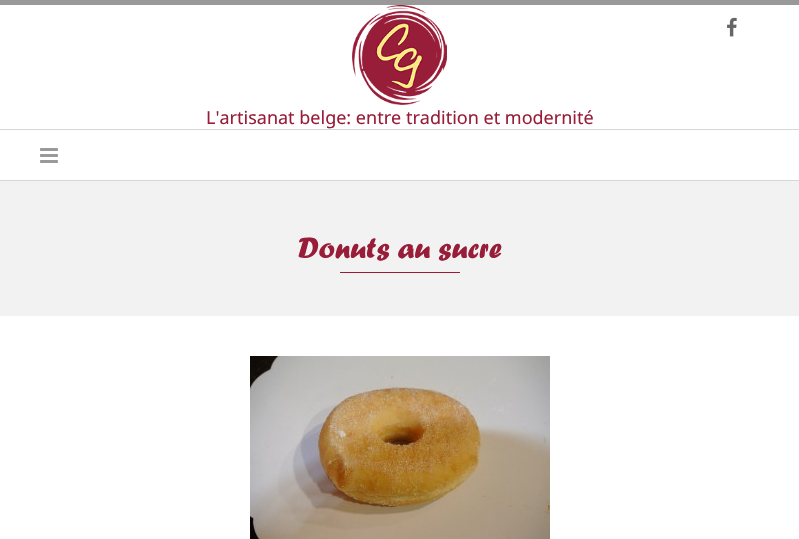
#include "include/core/SkBlurTypes.h"
#include "include/core/SkCanvas.h"
#include "include/core/SkData.h"
#include "include/core/SkFont.h"
#include "include/core/SkFontMgr.h"
#include "include/core/SkImage.h"
#include "include/core/SkMaskFilter.h"
#include "include/core/SkPaint.h"
#include "include/core/SkPathBuilder.h"
#include "include/core/SkTextBlob.h"
#include "include/effects/SkDashPathEffect.h"
#include "include/effects/SkGradientShader.h"
#include "include/utils/SkParsePath.h"

extern sk_sp<SkFontMgr> fontMgr;

void draw(SkCanvas* canvas) {
    SkPaint p;
    p.setAntiAlias(true);
    auto font = [&](const char* family, int weight, float size, bool italic = false) {
        SkFontStyle style(weight, SkFontStyle::kNormal_Width,
            italic ? SkFontStyle::kItalic_Slant : SkFontStyle::kUpright_Slant);
        SkFont result(fontMgr->matchFamilyStyle(family, style), size);
        result.setSubpixel(true);
        return result;
    };
    auto drawPhoto = [&](const char* path, float l, float t, float r, float b) {
        auto image = SkImages::DeferredFromEncodedData(SkData::MakeFromFileName(path));
        canvas->drawImageRect(image, SkRect::MakeLTRB(l, t, r, b), SkSamplingOptions());
    };
    canvas->clear(0xFF999999);
    p.setColor(0xFFFFFFFF);
    canvas->drawRect(SkRect::MakeLTRB(0, 5, 799, 539), p);
    drawPhoto("media/1.png", 727, 17, 737, 37);
    drawPhoto("media/2.png", 352, 5, 447, 105);
    auto font1 = font("Noto Sans", 400, 18);
    p.setColor(0xFF981D39);
    canvas->drawString("L'artisanat belge: entre tradition et modernité", 206, 124, font1, p);
    p.setColor(0xFFD7D7D7);
    canvas->drawRect(SkRect::MakeLTRB(0, 129, 799, 130), p);
    canvas->drawRect(SkRect::MakeLTRB(0, 180, 799, 181), p);
    drawPhoto("media/3.png", 40, 148, 58, 163);
    p.setColor(0xFFF2F2F2);
    canvas->drawRect(SkRect::MakeLTRB(0, 181, 799, 316), p);
    auto font2 = font("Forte", 400, 30);
    p.setColor(0xFF981D39);
    canvas->drawString("Donuts au sucre", 298, 258, font2, p);
    canvas->drawRect(SkRect::MakeLTRB(340, 272, 460, 273), p);
    drawPhoto("media/4.png", 250, 356, 550, 539);
}
